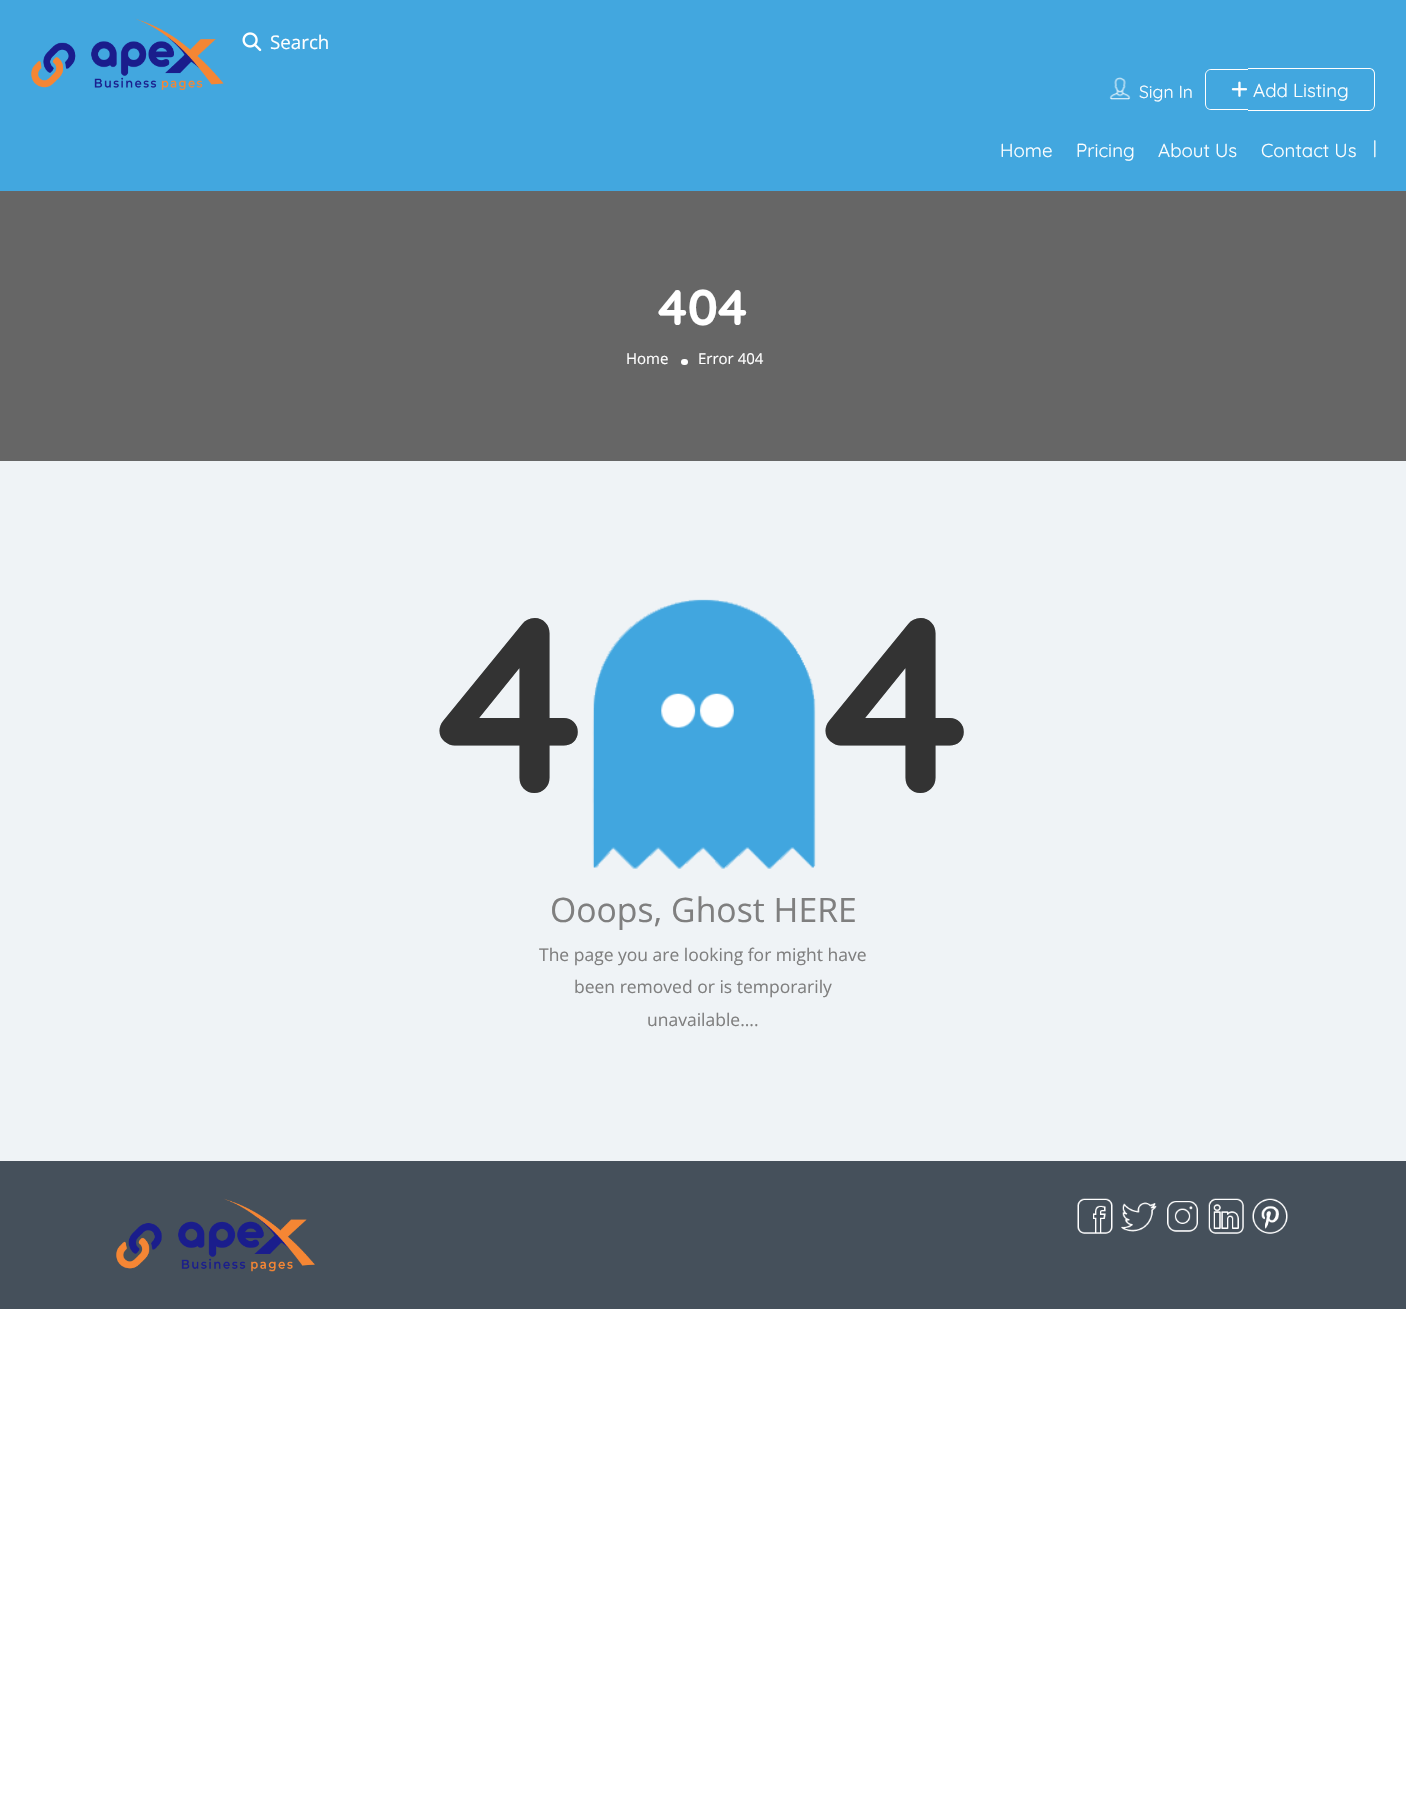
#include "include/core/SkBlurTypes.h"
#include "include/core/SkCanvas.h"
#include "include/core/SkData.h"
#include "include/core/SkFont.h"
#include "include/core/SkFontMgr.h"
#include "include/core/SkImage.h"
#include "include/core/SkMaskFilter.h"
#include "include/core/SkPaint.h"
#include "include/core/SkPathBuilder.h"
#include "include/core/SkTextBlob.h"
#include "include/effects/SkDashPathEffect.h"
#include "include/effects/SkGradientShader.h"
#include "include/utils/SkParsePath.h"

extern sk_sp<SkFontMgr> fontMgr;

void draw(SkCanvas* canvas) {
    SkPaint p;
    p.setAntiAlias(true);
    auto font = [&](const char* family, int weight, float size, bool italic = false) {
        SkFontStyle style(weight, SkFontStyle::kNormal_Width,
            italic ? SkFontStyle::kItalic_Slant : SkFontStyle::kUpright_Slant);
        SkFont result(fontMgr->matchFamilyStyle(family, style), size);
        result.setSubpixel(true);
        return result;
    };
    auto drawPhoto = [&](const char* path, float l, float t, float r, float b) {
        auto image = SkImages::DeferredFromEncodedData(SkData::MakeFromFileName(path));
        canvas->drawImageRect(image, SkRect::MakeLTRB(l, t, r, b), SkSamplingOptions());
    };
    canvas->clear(0xFFFFFFFF);
    p.setColor(0xFF42A7DF);
    canvas->drawRect(SkRect::MakeLTRB(0, 0, 1406, 191), p);
    drawPhoto("media/1.png", 31, 18, 224, 90);
    drawPhoto("media/2.png", 242, 32, 262, 52);
    auto font1 = font("Open Sans", 400, 18.75f);
    p.setColor(0xFFFFFFFF);
    canvas->drawString("Search", 270, 49, font1, p);
    drawPhoto("media/3.png", 1109, 77, 1131, 100);
    auto font2 = font("Quicksand", 400, 17.5f);
    canvas->drawString("Sign In", 1139, 98, font2, p);
    canvas->drawPath(SkPathBuilder(SkPathFillType::kEvenOdd).moveTo(1211, 69).lineTo(1248, 69).lineTo(1248, 110).lineTo(1211, 110).cubicTo(1208, 110, 1205, 107, 1205, 104).lineTo(1205, 75).cubicTo(1205, 72, 1208, 69, 1211, 69).close().moveTo(1211, 70).lineTo(1248, 70).lineTo(1248, 109).lineTo(1211, 109).cubicTo(1208, 109, 1206, 107, 1206, 104).lineTo(1206, 75).cubicTo(1206, 72, 1208, 70, 1211, 70).close().detach(), p);
    canvas->drawPath(SkPathBuilder(SkPathFillType::kEvenOdd).moveTo(1248, 68).lineTo(1369, 68).cubicTo(1372, 68, 1375, 70, 1375, 74).lineTo(1375, 105).cubicTo(1375, 108, 1372, 111, 1369, 111).lineTo(1248, 111).close().moveTo(1248, 69).lineTo(1369, 69).cubicTo(1372, 69, 1374, 71, 1374, 74).lineTo(1374, 105).cubicTo(1374, 108, 1372, 110, 1369, 110).lineTo(1248, 110).close().detach(), p);
    drawPhoto("media/4.png", 1231, 81, 1248, 97);
    auto font3 = font("Quicksand", 400, 18.75f);
    {
        const struct { const char* s; float x, y; } items[] = {
            {"Add Listing", 1253, 97},
            {"Home", 1000, 157},
            {"Pricing", 1076, 157},
            {"About Us", 1158, 157},
            {"Contact Us", 1261, 157},
        };
        for (auto [s, x, y] : items) {
            canvas->drawString(s, x, y, font3, p);
        }
    }
    canvas->drawString("|", 1373, 154, font2, p);
    p.setColor(0xFF666666);
    canvas->drawRect(SkRect::MakeLTRB(0, 191, 1406, 461), p);
    auto font4 = font("Quicksand", 700, 50);
    p.setColor(0xFFFFFFFF);
    canvas->drawString("404", 658, 325, font4, p);
    auto font5 = font("Open Sans", 400, 15);
    canvas->drawString("Home", 626, 364, font5, p);
    canvas->drawRoundRect(SkRect::MakeLTRB(681, 359, 688, 365), 3, 3, p);
    canvas->drawString("Error 404", 698, 364, font5, p);
    p.setColor(0xFFEFF3F6);
    canvas->drawRect(SkRect::MakeLTRB(0, 461, 1406, 1161), p);
    auto font6 = font("Quicksand", 700, 250);
    p.setColor(0xFF333333);
    canvas->drawString("4", 437, 793, font6, p);
    drawPhoto("media/5.png", 592, 599, 816, 869);
    canvas->drawString("4", 823, 793, font6, p);
    auto font7 = font("Open Sans", 400, 33.75f);
    p.setColor(0xFF7F7F7F);
    canvas->drawString("Ooops, Ghost HERE", 550, 922, font7, p);
    auto font8 = font("Open Sans", 400, 17.5f);
    {
        const struct { const char* s; float x, y; } items[] = {
            {"The page you are looking for might have", 539, 961},
            {"been removed or is temporarily", 574, 993},
            {"unavailable....", 647, 1026},
        };
        for (auto [s, x, y] : items) {
            canvas->drawString(s, x, y, font8, p);
        }
    }
    p.setColor(0xFF45505B);
    canvas->drawRect(SkRect::MakeLTRB(0, 1161, 1406, 1309), p);
    drawPhoto("media/6.png", 116, 1198, 315, 1272);
    drawPhoto("media/7.png", 1077, 1198, 1113, 1234);
    drawPhoto("media/8.png", 1121, 1202, 1157, 1232);
    drawPhoto("media/9.png", 1167, 1201, 1198, 1232);
    drawPhoto("media/10.png", 1208, 1198, 1244, 1234);
    drawPhoto("media/11.png", 1252, 1198, 1288, 1234);
}
